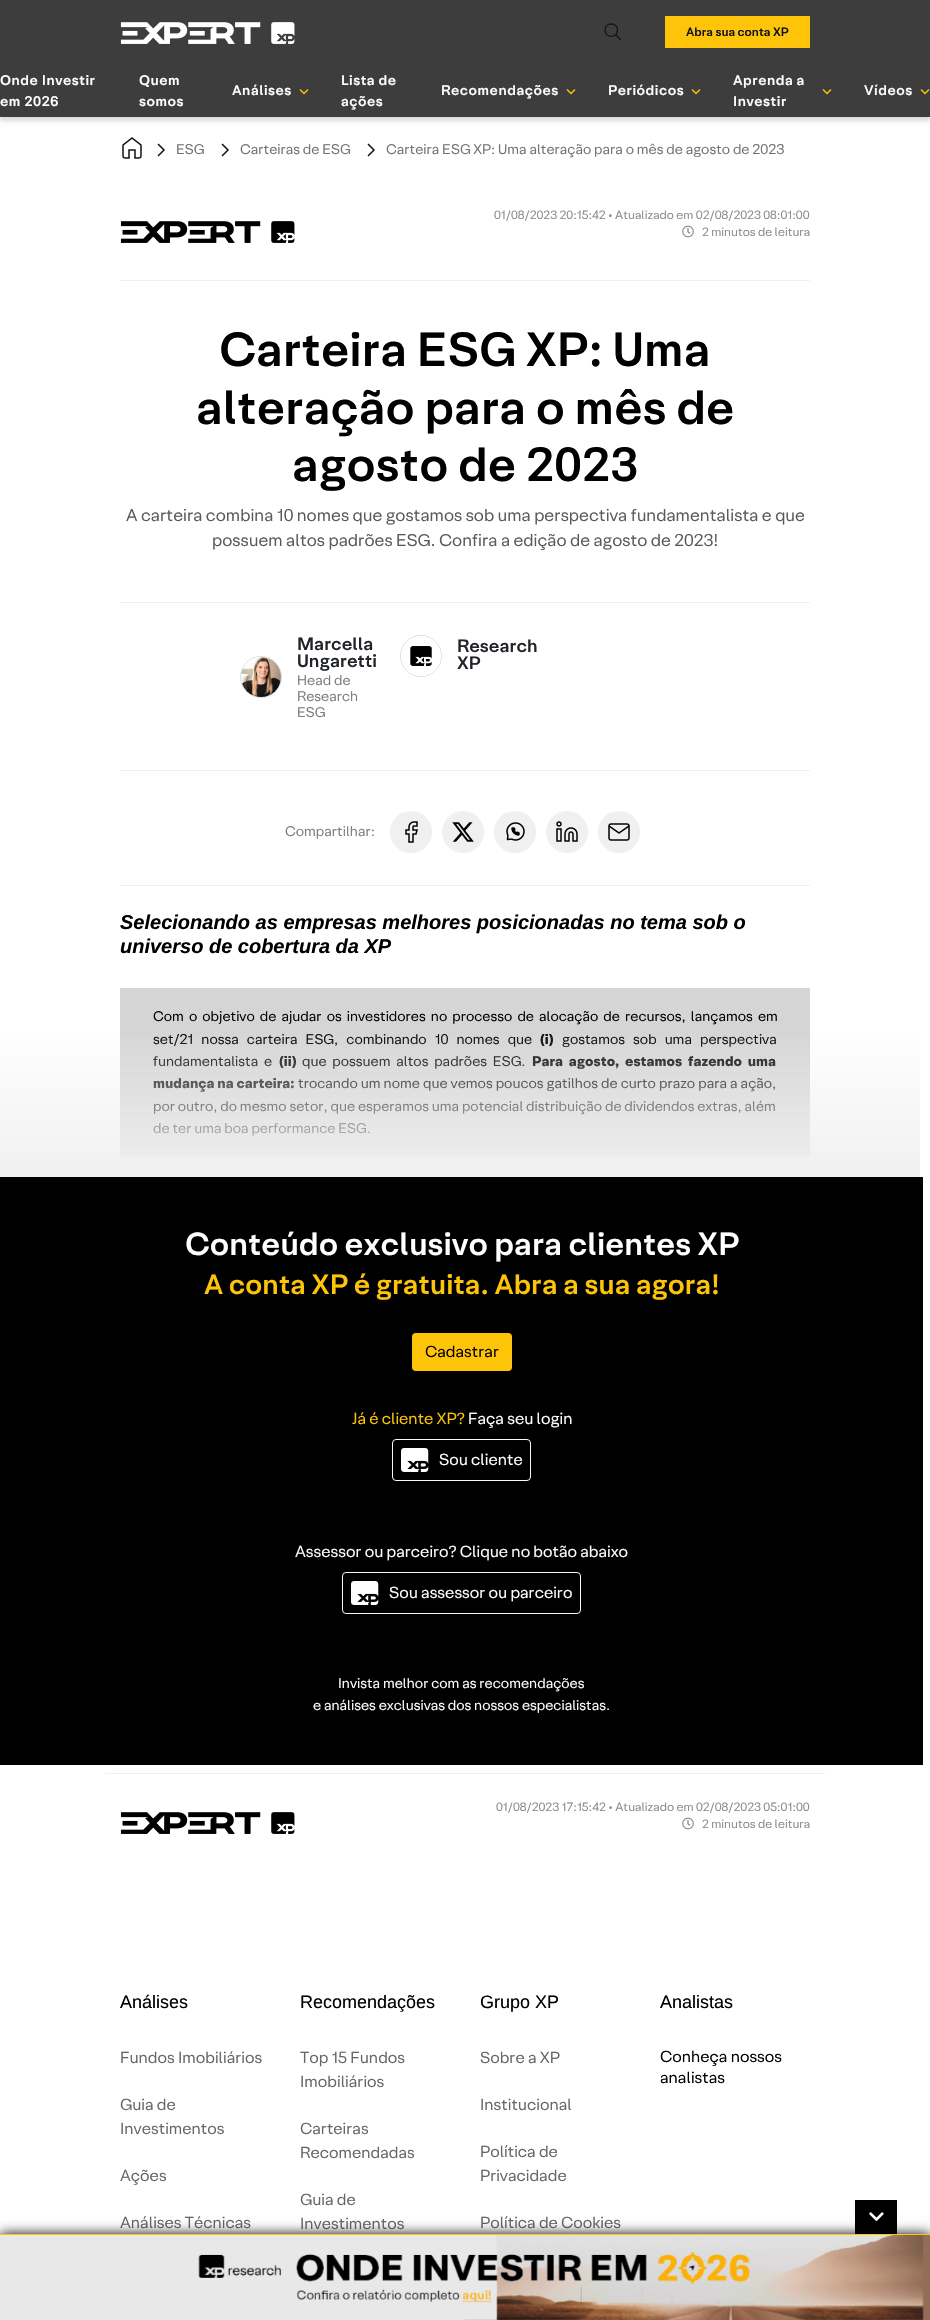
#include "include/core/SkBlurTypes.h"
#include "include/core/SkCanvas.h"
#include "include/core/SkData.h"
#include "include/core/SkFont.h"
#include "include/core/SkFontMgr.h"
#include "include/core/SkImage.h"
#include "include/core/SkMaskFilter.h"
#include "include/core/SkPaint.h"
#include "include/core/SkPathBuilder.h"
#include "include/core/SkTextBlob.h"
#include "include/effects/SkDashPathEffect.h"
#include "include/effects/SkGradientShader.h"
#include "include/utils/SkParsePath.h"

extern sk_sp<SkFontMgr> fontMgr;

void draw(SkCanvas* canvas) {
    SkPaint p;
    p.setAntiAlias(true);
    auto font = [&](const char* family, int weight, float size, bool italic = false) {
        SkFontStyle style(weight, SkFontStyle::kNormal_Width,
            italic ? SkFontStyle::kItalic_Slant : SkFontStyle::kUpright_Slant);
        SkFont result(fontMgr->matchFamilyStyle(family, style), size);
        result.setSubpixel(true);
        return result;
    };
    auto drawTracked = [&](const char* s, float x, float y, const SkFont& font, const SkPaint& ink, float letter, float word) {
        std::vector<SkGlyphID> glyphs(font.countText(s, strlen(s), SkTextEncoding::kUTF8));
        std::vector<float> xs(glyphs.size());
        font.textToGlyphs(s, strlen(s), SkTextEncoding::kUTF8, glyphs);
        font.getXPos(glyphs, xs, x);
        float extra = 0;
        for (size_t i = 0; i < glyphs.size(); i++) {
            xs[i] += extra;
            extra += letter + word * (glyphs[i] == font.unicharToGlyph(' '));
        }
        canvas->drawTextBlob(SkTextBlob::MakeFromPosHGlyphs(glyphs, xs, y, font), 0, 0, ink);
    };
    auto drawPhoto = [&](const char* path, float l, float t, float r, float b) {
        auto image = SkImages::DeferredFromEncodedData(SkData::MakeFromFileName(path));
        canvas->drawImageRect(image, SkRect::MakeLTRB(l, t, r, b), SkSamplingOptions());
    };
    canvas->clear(0xFFFFFFFF);
    p.setColor(0x24000000);
    p.setMaskFilter(SkMaskFilter::MakeBlur(kNormal_SkBlurStyle, 2));
    canvas->drawRect(SkRect::MakeLTRB(0, 4, 930, 121), p);
    p.setMaskFilter(nullptr);
    p.setColor(0xFF3D3D3D);
    canvas->drawRect(SkRect::MakeLTRB(0, 0, 930, 117), p);
    drawPhoto("media/1.png", 120, 22, 295, 44);
    p.setStyle(SkPaint::kStroke_Style);
    p.setStrokeWidth(1.4f);
    p.setColor(0xFF121212);
    canvas->drawPath(SkPathBuilder().moveTo(621, 40).lineTo(615.5f, 34.5f).moveTo(617.5f, 30).cubicTo(617.5f, 38.5f, 605, 38.5f, 605, 30).cubicTo(605, 22, 617.5f, 22, 617.5f, 30).close().detach(), p);
    p.setStyle(SkPaint::kFill_Style);
    p.setColor(0xFFFDC409);
    canvas->drawRect(SkRect::MakeLTRB(665, 16, 810, 48), p);
    auto font1 = font("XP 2", 300, 12);
    p.setColor(0xFF121212);
    canvas->drawString("Abra sua conta XP", 686, 36, font1, p);
    auto font2 = font("XP 2", 300, 14);
    p.setColor(0xFFFFFFFF);
    {
        const struct { const char* s; float x, y; } items[] = {
            {"Onde Investir", 0, 85},
            {"em 2026", 0, 106},
            {"Quem", 139, 85},
            {"somos", 139, 106},
            {"Análises", 232, 95},
        };
        for (auto [s, x, y] : items) {
            drawTracked(s, x, y, font2, p, 0.5f, 0);
        }
    }
    p.setStyle(SkPaint::kStroke_Style);
    p.setStrokeWidth(1.5f);
    p.setColor(0xFFFBC105);
    canvas->drawPath(SkPathBuilder().moveTo(300, 89.5f).lineTo(304, 93.5f).lineTo(308, 89.5f).detach(), p);
    p.setStyle(SkPaint::kFill_Style);
    p.setColor(0xFFFFFFFF);
    {
        const struct { const char* s; float x, y; } items[] = {
            {"Lista de", 341, 85},
            {"ações", 341, 106},
            {"Recomendações", 441, 95},
        };
        for (auto [s, x, y] : items) {
            drawTracked(s, x, y, font2, p, 0.5f, 0);
        }
    }
    p.setStyle(SkPaint::kStroke_Style);
    p.setColor(0xFFFBC105);
    canvas->drawPath(SkPathBuilder().moveTo(567, 89.5f).lineTo(571, 93.5f).lineTo(575, 89.5f).detach(), p);
    p.setStyle(SkPaint::kFill_Style);
    p.setColor(0xFFFFFFFF);
    drawTracked("Periódicos", 608, 95, font2, p, 0.5f, 0);
    p.setStyle(SkPaint::kStroke_Style);
    p.setColor(0xFFFBC105);
    canvas->drawPath(SkPathBuilder().moveTo(692, 89.5f).lineTo(696, 93.5f).lineTo(700, 89.5f).detach(), p);
    p.setStyle(SkPaint::kFill_Style);
    p.setColor(0xFFFFFFFF);
    drawTracked("Aprenda a", 733, 85, font2, p, 0.5f, 0);
    drawTracked("Investir", 733, 106, font2, p, 0.5f, 0);
    p.setStyle(SkPaint::kStroke_Style);
    p.setColor(0xFFFBC105);
    canvas->drawPath(SkPathBuilder().moveTo(823, 89.5f).lineTo(827, 93.5f).lineTo(831, 89.5f).detach(), p);
    p.setStyle(SkPaint::kFill_Style);
    p.setColor(0xFFFFFFFF);
    drawTracked("Vídeos", 864, 95, font2, p, 0.5f, 0);
    p.setStyle(SkPaint::kStroke_Style);
    p.setColor(0xFFFBC105);
    canvas->drawPath(SkPathBuilder().moveTo(921, 89.5f).lineTo(925, 93.5f).lineTo(929, 89.5f).detach(), p);
    drawPhoto("media/2.png", 122, 137, 142, 159);
    p.setColor(0xFF121212);
    canvas->drawPath(SkPathBuilder().moveTo(158, 156).lineTo(164, 150).lineTo(158, 144).detach(), p);
    auto font3 = font("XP", 300, 14);
    p.setStyle(SkPaint::kFill_Style);
    p.setColor(0xFF727272);
    canvas->drawString("ESG", 176, 154, font3, p);
    p.setStyle(SkPaint::kStroke_Style);
    p.setColor(0xFF121212);
    canvas->drawPath(SkPathBuilder().moveTo(222, 156).lineTo(228, 150).lineTo(222, 144).detach(), p);
    p.setStyle(SkPaint::kFill_Style);
    p.setColor(0xFF727272);
    canvas->drawString("Carteiras de ESG", 240, 154, font3, p);
    p.setStyle(SkPaint::kStroke_Style);
    p.setColor(0xFF121212);
    canvas->drawPath(SkPathBuilder().moveTo(368, 156).lineTo(374, 150).lineTo(368, 144).detach(), p);
    p.setStyle(SkPaint::kFill_Style);
    p.setColor(0xFF727272);
    canvas->drawString("Carteira ESG XP: Uma alteração para o mês de agosto de 2023", 386, 154, font3, p);
    drawPhoto("media/3.png", 120, 221, 295, 243);
    auto font4 = font("XP", 300, 12);
    p.setColor(0xFF8A8A8A);
    canvas->drawString("01/08/2023 20:15:42 • Atualizado em 02/08/2023 08:01:00", 494, 219, font4, p);
    drawPhoto("media/4.png", 682, 225, 694, 238);
    canvas->drawString("2 minutos de leitura", 702, 236, font4, p);
    p.setColor(0xFFF0F0F0);
    canvas->drawRect(SkRect::MakeLTRB(120, 280, 810, 281), p);
    auto font5 = font("XP 2", 300, 48);
    p.setColor(0xFF000000);
    {
        const struct { const char* s; float x, y; } items[] = {
            {"Carteira ESG XP: Uma", 219, 366},
            {"alteração para o mês de", 196, 424},
            {"agosto de 2023", 292, 481},
        };
        for (auto [s, x, y] : items) {
            canvas->drawString(s, x, y, font5, p);
        }
    }
    auto font6 = font("XP", 300, 17);
    p.setColor(0xFF595959);
    canvas->drawString("A carteira combina 10 nomes que gostamos sob uma perspectiva fundamentalista e que", 126, 521, font6, p);
    canvas->drawString("possuem altos padrões ESG. Confira a edição de agosto de 2023!", 212, 546, font6, p);
    p.setColor(0xFFF0F0F0);
    canvas->drawRect(SkRect::MakeLTRB(120, 602, 810, 603), p);
    p.setStyle(SkPaint::kStroke_Style);
    p.setStrokeWidth(1);
    p.setColor(0xFFDDDDDD);
    canvas->drawCircle(261, 677, 20.5f, p);
    drawPhoto("media/5.png", 241, 657, 281, 697);
    auto font7 = font("XP 2", 300, 18);
    p.setStyle(SkPaint::kFill_Style);
    p.setColor(0xFF212529);
    canvas->drawString("Marcella", 297, 650, font7, p);
    canvas->drawString("Ungaretti", 297, 667, font7, p);
    p.setColor(0xFF7A7C7F);
    {
        const struct { const char* s; float x, y; } items[] = {
            {"Head de", 297, 685},
            {"Research", 297, 701},
            {"ESG", 297, 717},
        };
        for (auto [s, x, y] : items) {
            canvas->drawString(s, x, y, font3, p);
        }
    }
    p.setStyle(SkPaint::kStroke_Style);
    p.setColor(0xFFDDDDDD);
    canvas->drawCircle(421, 656, 20.5f, p);
    drawPhoto("media/6.png", 401, 636, 441, 676);
    p.setStyle(SkPaint::kFill_Style);
    p.setColor(0xFF212529);
    canvas->drawString("Research", 457, 652, font7, p);
    canvas->drawString("XP", 457, 669, font7, p);
    p.setColor(0xFFF0F0F0);
    canvas->drawRect(SkRect::MakeLTRB(120, 770, 810, 771), p);
    p.setColor(0xFF7A7C7F);
    canvas->drawString("Compartilhar:", 285, 836, font3, p);
    p.setColor(0xFFF0F0F0);
    canvas->drawCircle(411, 832, 21, p);
    drawPhoto("media/7.png", 405, 821, 418, 843);
    canvas->drawCircle(463, 832, 21, p);
    drawPhoto("media/8.png", 452, 822, 474, 842);
    canvas->drawCircle(515, 832, 21, p);
    drawPhoto("media/9.png", 506, 822, 525, 841);
    canvas->drawCircle(567, 832, 21, p);
    drawPhoto("media/10.png", 556, 821, 578, 842);
    canvas->drawCircle(619, 832, 21, p);
    drawPhoto("media/11.png", 608, 823, 630, 841);
    canvas->drawRect(SkRect::MakeLTRB(120, 885, 810, 886), p);
    auto font8 = font("Liberation Sans", 700, 20, true);
    p.setColor(0xFF000000);
    canvas->drawString("Selecionando as empresas melhores posicionadas no tema sob o", 120, 929, font8, p);
    canvas->drawString("universo de cobertura da XP", 120, 953, font8, p);
    p.setColor(0xFFD5D5D5);
    canvas->drawRect(SkRect::MakeLTRB(120, 988, 810, 1157), p);
    p.setColor(0xFF000000);
    drawTracked("Com o objetivo de ajudar os investidores no processo de alocação de recursos, lançamos em", 153, 1021, font3, p, 0, 2.25f);
    drawTracked("set/21 nossa carteira ESG, combinando 10 nomes que", 153, 1044, font3, p, 0, 5.25f);
    auto font9 = font("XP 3", 300, 14);
    canvas->drawString("(i)", 540, 1044, font9, p);
    drawTracked("gostamos sob uma perspectiva", 562, 1044, font3, p, 0, 5.25f);
    drawTracked("fundamentalista e", 153, 1066, font3, p, 0, 3);
    canvas->drawString("(ii)", 279, 1066, font9, p);
    drawTracked("que possuem altos padrões ESG.", 302, 1066, font3, p, 0, 3);
    drawTracked("Para agosto, estamos fazendo uma", 532, 1066, font9, p, 0, 3);
    canvas->drawString("mudança na carteira:", 153, 1088, font9, p);
    drawTracked("trocando um nome que vemos poucos gatilhos de curto prazo para a ação,", 298, 1088, font3, p, 0, 0.25f);
    canvas->drawString("por outro, do mesmo setor, que esperamos uma potencial distribuição de dividendos extras, além", 153, 1111, font3, p);
    canvas->drawString("de ter uma boa performance ESG.", 153, 1133, font3, p);
    canvas->drawRect(SkRect::MakeLTRB(0, 1177, 923, 1765), p);
    {
        const SkColor colors[] = {0x00F0F0F0, 0xFFF0F0F0};
        const float stops[] = {0, 1};
        const SkPoint ends[] = {{459, 1027}, {459, 1177}};
        p.setShader(SkGradientShader::MakeLinear(ends, colors, stops, 2, SkTileMode::kClamp));
        p.setAlpha(255);
    }
    canvas->drawRect(SkRect::MakeLTRB(0, 1034, 920, 1177), p);
    auto font10 = font("XP 2", 300, 32);
    p.setShader(nullptr);
    p.setColor(0xFFFFFFFF);
    canvas->drawString("Conteúdo exclusivo para clientes XP", 185, 1255, font10, p);
    auto font11 = font("XP 2", 300, 28);
    p.setColor(0xFFFDC409);
    canvas->drawString("A conta XP é gratuita. Abra a sua agora!", 204, 1294, font11, p);
    canvas->drawRoundRect(SkRect::MakeLTRB(412, 1333, 512, 1371), 4, 4, p);
    auto font12 = font("XP", 300, 16);
    p.setColor(0xFF000000);
    canvas->drawString("Cadastrar", 425, 1357, font12, p);
    p.setColor(0xFFFDC409);
    canvas->drawString("Já é cliente XP?", 352, 1424, font12, p);
    p.setColor(0xFFFFFFFF);
    canvas->drawString("Faça seu login", 468, 1424, font12, p);
    p.setStyle(SkPaint::kStroke_Style);
    p.setColor(0xFFF8F9FA);
    canvas->drawRoundRect(SkRect::MakeLTRB(392.5f, 1439.5f, 530.5f, 1480.5f), 3.5f, 3.5f, p);
    drawPhoto("media/12.png", 401, 1448, 429, 1472);
    p.setStyle(SkPaint::kFill_Style);
    p.setColor(0xFFFFFFFF);
    canvas->drawString("Sou cliente", 439, 1465, font12, p);
    canvas->drawString("Assessor ou parceiro? Clique no botão abaixo", 295, 1557, font12, p);
    p.setStyle(SkPaint::kStroke_Style);
    p.setColor(0xFFF8F9FA);
    canvas->drawRoundRect(SkRect::MakeLTRB(342.5f, 1572.5f, 580.5f, 1613.5f), 3.5f, 3.5f, p);
    drawPhoto("media/12.png", 351, 1581, 379, 1605);
    p.setStyle(SkPaint::kFill_Style);
    p.setColor(0xFFFFFFFF);
    canvas->drawString("Sou assessor ou parceiro", 389, 1598, font12, p);
    canvas->drawString("Invista melhor com as recomendações", 338, 1688, font3, p);
    canvas->drawString("e análises exclusivas dos nossos especialistas.", 313, 1710, font3, p);
    p.setColor(0xFFF0F0F0);
    canvas->drawRect(SkRect::MakeLTRB(105, 1773, 825, 1774), p);
    drawPhoto("media/3.png", 120, 1812, 295, 1834);
    p.setColor(0xFF8A8A8A);
    canvas->drawString("01/08/2023 17:15:42 • Atualizado em 02/08/2023 05:01:00", 496, 1811, font4, p);
    drawPhoto("media/4.png", 682, 1817, 694, 1830);
    canvas->drawString("2 minutos de leitura", 702, 1828, font4, p);
    auto font13 = font("Liberation Sans", 400, 18);
    p.setColor(0xFF000000);
    canvas->drawString("Análises", 120, 2008, font13, p);
    p.setColor(0xFF666666);
    {
        const struct { const char* s; float x, y; } items[] = {
            {"Fundos Imobiliários", 120, 2063},
            {"Guia de", 120, 2110},
            {"Investimentos", 120, 2134},
            {"Ações", 120, 2181},
            {"Análises Técnicas", 120, 2228},
        };
        for (auto [s, x, y] : items) {
            canvas->drawString(s, x, y, font12, p);
        }
    }
    p.setColor(0xFF000000);
    canvas->drawString("Recomendações", 300, 2008, font13, p);
    p.setColor(0xFF666666);
    {
        const struct { const char* s; float x, y; } items[] = {
            {"Top 15 Fundos", 300, 2063},
            {"Imobiliários", 300, 2087},
            {"Carteiras", 300, 2134},
            {"Recomendadas", 300, 2158},
            {"Guia de", 300, 2205},
            {"Investimentos", 300, 2229},
        };
        for (auto [s, x, y] : items) {
            canvas->drawString(s, x, y, font12, p);
        }
    }
    p.setColor(0xFF000000);
    canvas->drawString("Grupo XP", 480, 2008, font13, p);
    p.setColor(0xFF666666);
    {
        const struct { const char* s; float x, y; } items[] = {
            {"Sobre a XP", 480, 2063},
            {"Institucional", 480, 2110},
            {"Política de", 480, 2157},
            {"Privacidade", 480, 2181},
            {"Política de Cookies", 480, 2228},
        };
        for (auto [s, x, y] : items) {
            canvas->drawString(s, x, y, font12, p);
        }
    }
    p.setColor(0xFF000000);
    canvas->drawString("Analistas", 660, 2008, font13, p);
    canvas->drawString("Conheça nossos", 660, 2062, font12, p);
    canvas->drawString("analistas", 660, 2083, font12, p);
    p.setMaskFilter(SkMaskFilter::MakeBlur(kNormal_SkBlurStyle, 6));
    canvas->drawRect(SkRect::MakeLTRB(0, 2234, 930, 2320), p);
    p.setMaskFilter(nullptr);
    {
        const SkColor colors[] = {0xFFE8E8E8, 0xFFE8E8E8, 0xFF936E59, 0xFF946D58};
        const float stops[] = {0, 0.5f, 0.5f, 1};
        const SkPoint ends[] = {{0, 2278}, {930, 2278}};
        p.setShader(SkGradientShader::MakeLinear(ends, colors, stops, 4, SkTileMode::kClamp));
        p.setAlpha(255);
    }
    canvas->drawRect(SkRect::MakeLTRB(0, 2235, 930, 2320), p);
    p.setShader(nullptr);
    p.setColor(0xFFFFC709);
    canvas->drawRect(SkRect::MakeLTRB(0, 2234, 930, 2235), p);
    p.setColor(0xFF000000);
    canvas->drawRect(SkRect::MakeLTRB(855, 2200, 897, 2234), p);
    drawPhoto("media/13.png", 869, 2212, 884, 2221);
    drawPhoto("media/14.png", 198, 2235, 924, 2320);
}
